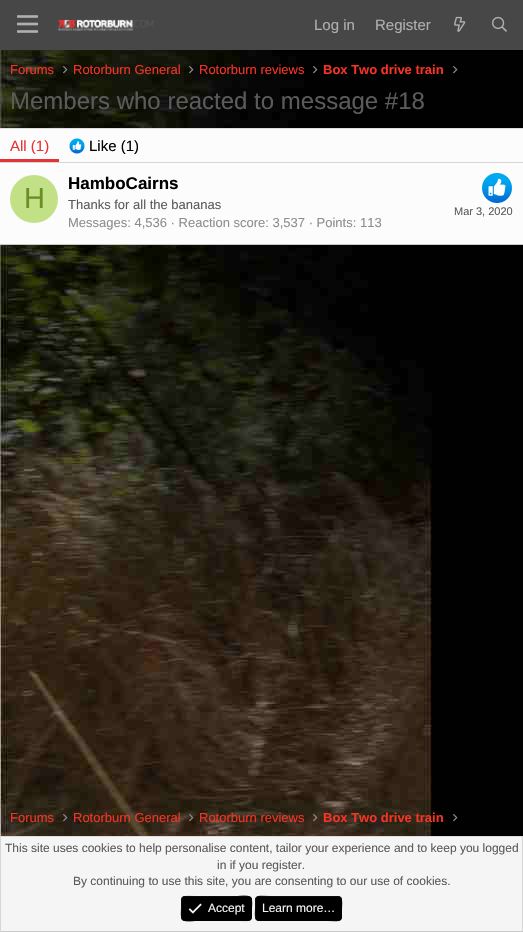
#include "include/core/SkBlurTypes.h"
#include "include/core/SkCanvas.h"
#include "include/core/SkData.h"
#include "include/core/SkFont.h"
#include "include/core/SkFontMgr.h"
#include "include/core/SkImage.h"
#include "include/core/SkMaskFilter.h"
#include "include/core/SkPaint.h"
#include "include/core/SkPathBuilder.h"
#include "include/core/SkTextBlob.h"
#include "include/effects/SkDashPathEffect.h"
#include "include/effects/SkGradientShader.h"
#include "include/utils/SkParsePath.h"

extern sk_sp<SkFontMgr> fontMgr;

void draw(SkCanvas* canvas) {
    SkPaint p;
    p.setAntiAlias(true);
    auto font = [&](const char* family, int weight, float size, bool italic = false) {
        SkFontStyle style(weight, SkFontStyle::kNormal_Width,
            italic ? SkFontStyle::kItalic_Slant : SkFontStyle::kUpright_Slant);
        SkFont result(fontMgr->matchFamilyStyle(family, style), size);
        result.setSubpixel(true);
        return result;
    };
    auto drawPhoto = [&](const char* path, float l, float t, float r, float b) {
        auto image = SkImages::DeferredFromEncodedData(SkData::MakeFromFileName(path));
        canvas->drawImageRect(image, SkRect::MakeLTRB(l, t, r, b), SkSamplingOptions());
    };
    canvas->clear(0xFFFFFFFF);
    drawPhoto("media/1.png", 0, 50, 523, 836);
    p.setColor(0xFF474747);
    canvas->drawRect(SkRect::MakeLTRB(0, 0, 523, 50), p);
    drawPhoto("media/2.png", 17, 15, 38, 33);
    drawPhoto("media/3.png", 58, 19, 154, 31);
    auto font1 = font("Liberation Sans", 400, 15);
    p.setColor(0xFFAFAFAF);
    canvas->drawString("Log in", 314, 30, font1, p);
    canvas->drawString("Register", 375, 30, font1, p);
    drawPhoto("media/4.png", 454, 16, 466, 32);
    drawPhoto("media/5.png", 492, 16, 507, 32);
    auto font2 = font("Liberation Sans", 400, 13);
    p.setColor(0xFFF63324);
    canvas->drawString("Forums", 10, 74, font2, p);
    drawPhoto("media/6.png", 63, 66, 68, 74);
    canvas->drawString("Rotorburn General", 73, 74, font2, p);
    drawPhoto("media/7.png", 189, 66, 194, 74);
    canvas->drawString("Rotorburn reviews", 199, 74, font2, p);
    drawPhoto("media/8.png", 313, 66, 318, 74);
    auto font3 = font("Liberation Sans", 700, 13);
    canvas->drawString("Box Two drive train", 323, 74, font3, p);
    drawPhoto("media/8.png", 453, 66, 458, 74);
    auto font4 = font("Liberation Sans", 400, 24);
    p.setColor(0xFF5B5B5B);
    canvas->drawString("Members who reacted to message #18", 10, 109, font4, p);
    {
        const struct { float l, t, r, b; SkColor color; } items[] = {
            {0, 129, 523, 244, 0xFFFCFCFC},
            {0, 128, 523, 129, 0xFFDDDDDD},
            {0, 244, 523, 245, 0xFFC9C9C9},
            {0, 162, 523, 163, 0xFFD6D6D6},
            {0, 159, 59, 162, 0xFFE43336},
        };
        for (auto [l, t, r, b, color] : items) {
            p.setColor(color);
            canvas->drawRect(SkRect::MakeLTRB(l, t, r, b), p);
        }
    }
    canvas->drawString("All (1)", 10, 151, font1, p);
    drawPhoto("media/9.png", 69, 138, 85, 154);
    p.setColor(0xFF000000);
    canvas->drawString("Like (1)", 89, 151, font1, p);
    p.setColor(0xFFC2E085);
    canvas->drawCircle(34, 199, 24, p);
    auto font5 = font("Liberation Sans", 400, 29);
    p.setColor(0xFF6B8F24);
    canvas->drawString("H", 24, 208, font5, p);
    auto font6 = font("Liberation Sans", 700, 17);
    p.setColor(0xFF000000);
    canvas->drawString("HamboCairns", 68, 189, font6, p);
    p.setColor(0xFF5B5B5B);
    canvas->drawString("Thanks for all the bananas", 68, 209, font2, p);
    drawPhoto("media/10.png", 482, 173, 512, 203);
    auto font7 = font("Liberation Sans", 400, 11);
    canvas->drawString("Mar 3, 2020", 454, 215, font7, p);
    p.setColor(0xFF8E8E8E);
    canvas->drawString("Messages: 4,536 · Reaction score: 3,537 · Points: 113", 68, 227, font2, p);
    p.setColor(0xFFF63324);
    canvas->drawString("Forums", 10, 822, font2, p);
    drawPhoto("media/11.png", 63, 814, 68, 822);
    canvas->drawString("Rotorburn General", 73, 822, font2, p);
    drawPhoto("media/12.png", 189, 814, 194, 822);
    canvas->drawString("Rotorburn reviews", 199, 822, font2, p);
    drawPhoto("media/13.png", 313, 814, 318, 822);
    canvas->drawString("Box Two drive train", 323, 822, font3, p);
    drawPhoto("media/8.png", 453, 814, 458, 822);
    {
        const struct { float l, t, r, b; SkColor color; } items[] = {
            {1, 837, 522, 931, 0xFFF5F5F5},
            {0, 836, 523, 837, 0xFFDDDDDD},
            {522, 836, 523, 932, 0xFFD6D6D6},
            {0, 931, 523, 932, 0xFFC9C9C9},
            {0, 836, 1, 932, 0xFFD6D6D6},
        };
        for (auto [l, t, r, b, color] : items) {
            p.setColor(color);
            canvas->drawRect(SkRect::MakeLTRB(l, t, r, b), p);
        }
    }
    auto font8 = font("Liberation Sans", 400, 12);
    p.setColor(0xFF5B5B5B);
    {
        const struct { const char* s; float x, y; } items[] = {
            {"This site uses cookies to help personalise content, tailor your experience and to keep you logged", 5, 852},
            {"in if you register.", 217, 869},
            {"By continuing to use this site, you are consenting to our use of cookies.", 73, 885},
        };
        for (auto [s, x, y] : items) {
            canvas->drawString(s, x, y, font8, p);
        }
    }
    p.setColor(0xFF000000);
    canvas->drawRoundRect(SkRect::MakeLTRB(181, 896, 252, 921), 4, 4, p);
    p.setStyle(SkPaint::kStroke_Style);
    p.setStrokeWidth(1);
    canvas->drawPath(SkPathBuilder().moveTo(250.5f, 897.5f).cubicTo(252.5f, 900, 251.5f, 906, 251.5f, 908.5f).cubicTo(251.5f, 922.5f, 252.5f, 920.5f, 237.5f, 920.5f).lineTo(195.5f, 920.5f).cubicTo(194.5f, 920.5f, 185, 922, 182.5f, 919.5f).detach(), p);
    p.setColor(0xFF0D0D0D);
    canvas->drawPath(SkPathBuilder().moveTo(182.5f, 919.5f).cubicTo(180.5f, 917, 181.5f, 911, 181.5f, 908.5f).cubicTo(181.5f, 894.5f, 180.5f, 896.5f, 195.5f, 896.5f).lineTo(237.5f, 896.5f).cubicTo(238.5f, 896.5f, 248, 895, 250.5f, 897.5f).detach(), p);
    drawPhoto("media/14.png", 188, 903, 202, 914);
    p.setStyle(SkPaint::kFill_Style);
    p.setColor(0xFFF5F5F5);
    canvas->drawString("Accept", 208, 912, font8, p);
    p.setColor(0xFF000000);
    canvas->drawRoundRect(SkRect::MakeLTRB(255, 896, 342, 921), 4, 4, p);
    p.setStyle(SkPaint::kStroke_Style);
    canvas->drawPath(SkPathBuilder().moveTo(340.5f, 897.5f).cubicTo(342.5f, 900, 341.5f, 906, 341.5f, 908.5f).cubicTo(341.5f, 923.5f, 342, 920.5f, 325, 920.5f).lineTo(259, 920.5f).lineTo(256.5f, 919.5f).detach(), p);
    p.setColor(0xFF0D0D0D);
    canvas->drawPath(SkPathBuilder().moveTo(256.5f, 919.5f).cubicTo(254.5f, 917, 255.5f, 911, 255.5f, 908.5f).cubicTo(255.5f, 893.5f, 255, 896.5f, 272, 896.5f).lineTo(338, 896.5f).lineTo(340.5f, 897.5f).detach(), p);
    p.setStyle(SkPaint::kFill_Style);
    p.setColor(0xFFF5F5F5);
    canvas->drawString("Learn more…", 262, 912, font8, p);
}
